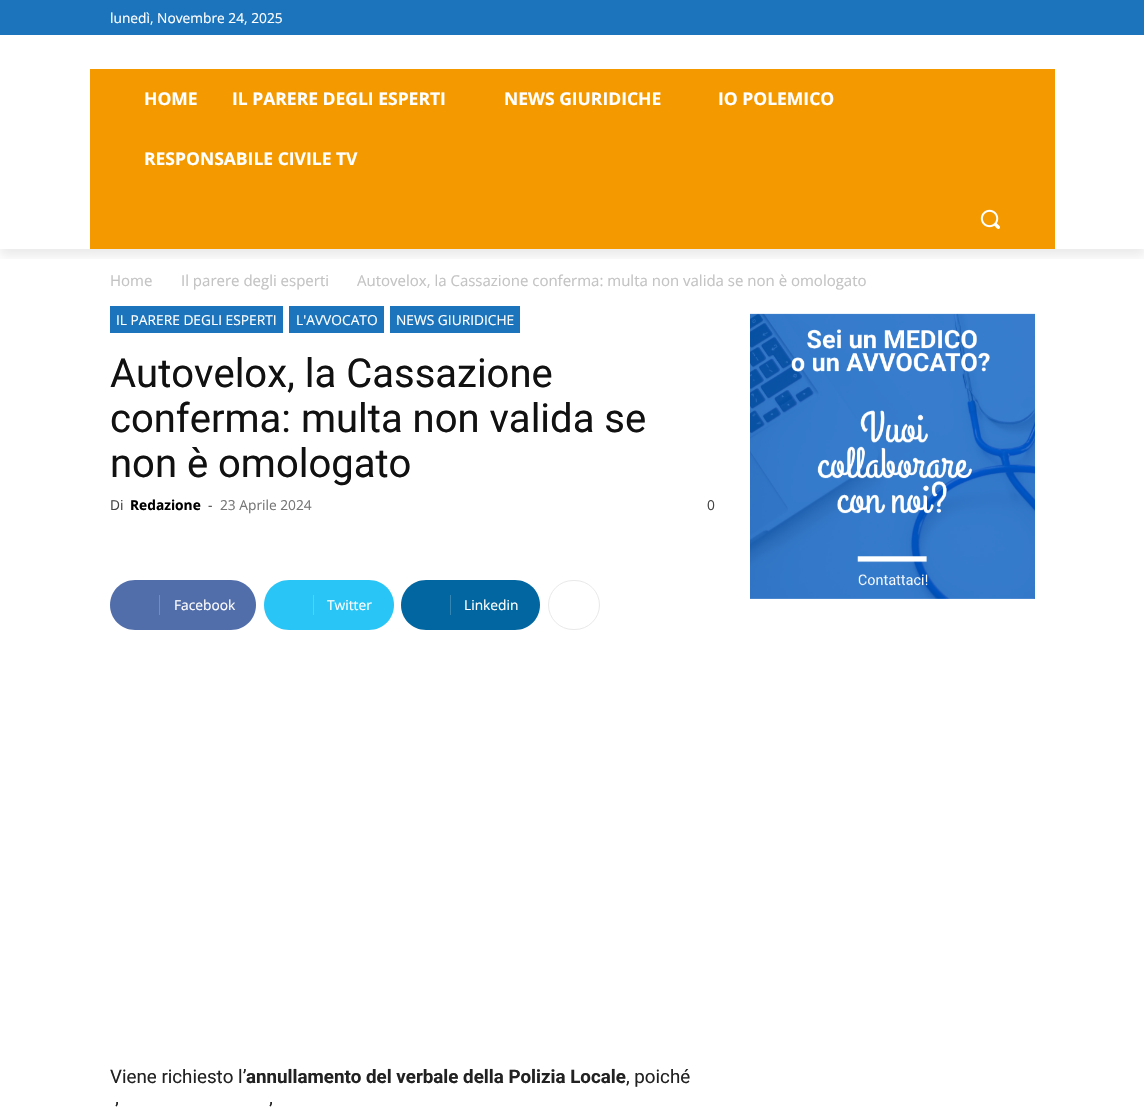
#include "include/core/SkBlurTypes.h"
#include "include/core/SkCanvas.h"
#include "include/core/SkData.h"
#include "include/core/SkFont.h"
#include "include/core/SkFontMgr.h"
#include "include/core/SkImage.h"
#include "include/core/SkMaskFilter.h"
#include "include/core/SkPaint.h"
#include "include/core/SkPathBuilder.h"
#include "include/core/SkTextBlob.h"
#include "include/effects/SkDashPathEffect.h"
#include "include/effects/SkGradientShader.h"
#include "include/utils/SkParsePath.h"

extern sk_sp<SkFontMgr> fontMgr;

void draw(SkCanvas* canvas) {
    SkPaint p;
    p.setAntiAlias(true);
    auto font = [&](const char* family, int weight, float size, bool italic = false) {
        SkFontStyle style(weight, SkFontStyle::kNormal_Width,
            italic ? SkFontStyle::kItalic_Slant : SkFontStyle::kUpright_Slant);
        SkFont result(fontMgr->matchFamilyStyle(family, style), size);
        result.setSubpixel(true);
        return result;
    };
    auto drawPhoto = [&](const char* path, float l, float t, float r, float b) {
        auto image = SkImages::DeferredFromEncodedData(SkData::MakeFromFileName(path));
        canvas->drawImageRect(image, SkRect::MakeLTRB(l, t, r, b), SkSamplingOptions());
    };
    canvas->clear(0xFFFFFFFF);
    p.setColor(0xFF1C74BC);
    canvas->drawRect(SkRect::MakeLTRB(0, 0, 1144, 35), p);
    p.setColor(0xFFF49900);
    canvas->drawRect(SkRect::MakeLTRB(90, 69, 1055, 249), p);
    canvas->save();
    canvas->clipRect(SkRect::MakeLTRB(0, 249, 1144, 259));
    p.setColor(0x14000000);
    p.setMaskFilter(SkMaskFilter::MakeBlur(kNormal_SkBlurStyle, 5));
    canvas->drawRect(SkRect::MakeLTRB(0, 8, 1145, 256), p);
    p.setMaskFilter(nullptr);
    canvas->restore();
    auto font1 = font("Open Sans", 400, 13.75f);
    p.setColor(0xFFFFFFFF);
    canvas->drawString("lunedì, Novembre 24, 2025", 110, 23, font1, p);
    auto font2 = font("Open Sans", 700, 17.5f);
    {
        const struct { const char* s; float x, y; } items[] = {
            {"HOME", 144, 105},
            {"IL PARERE DEGLI ESPERTI", 232, 105},
            {"NEWS GIURIDICHE", 504, 105},
            {"IO POLEMICO", 718, 105},
            {"RESPONSABILE CIVILE TV", 144, 165},
        };
        for (auto [s, x, y] : items) {
            canvas->drawString(s, x, y, font2, p);
        }
    }
    drawPhoto("media/1.png", 980, 209, 1000, 229);
    auto font3 = font("Open Sans", 400, 15);
    p.setColor(0xFFC3C3C3);
    {
        const struct { const char* s; float x, y; } items[] = {
            {"Home", 110, 286},
            {"Il parere degli esperti", 181, 286},
            {"Autovelox, la Cassazione conferma: multa non valida se non è omologato", 357, 286},
        };
        for (auto [s, x, y] : items) {
            canvas->drawString(s, x, y, font3, p);
        }
    }
    p.setColor(0xFF1C75BC);
    canvas->drawRect(SkRect::MakeLTRB(110, 306, 283, 333), p);
    p.setColor(0xFFFFFFFF);
    canvas->drawString("IL PARERE DEGLI ESPERTI", 116, 325, font1, p);
    p.setColor(0xFF1C75BC);
    canvas->drawRect(SkRect::MakeLTRB(289, 306, 384, 333), p);
    p.setColor(0xFFFFFFFF);
    canvas->drawString("L'AVVOCATO", 296, 325, font1, p);
    p.setColor(0xFF1C75BC);
    canvas->drawRect(SkRect::MakeLTRB(390, 306, 520, 333), p);
    p.setColor(0xFFFFFFFF);
    canvas->drawString("NEWS GIURIDICHE", 396, 325, font1, p);
    auto font4 = font("Roboto", 400, 40);
    p.setColor(0xFF111111);
    {
        const struct { const char* s; float x, y; } items[] = {
            {"Autovelox, la Cassazione", 110, 387},
            {"conferma: multa non valida se", 110, 432},
            {"non è omologato", 110, 477},
        };
        for (auto [s, x, y] : items) {
            canvas->drawString(s, x, y, font4, p);
        }
    }
    p.setColor(0xFF444444);
    canvas->drawString("Di", 110, 510, font1, p);
    auto font5 = font("Open Sans", 700, 13.75f);
    p.setColor(0xFF000000);
    canvas->drawString("Redazione", 130, 510, font5, p);
    p.setColor(0xFF444444);
    canvas->drawString("-", 208, 510, font1, p);
    p.setColor(0xFF767676);
    canvas->drawString("23 Aprile 2024", 220, 510, font1, p);
    p.setColor(0xFF444444);
    canvas->drawString("0", 707, 510, font1, p);
    p.setColor(0xFF516EAB);
    canvas->drawPath(SkPathBuilder().moveTo(159, 580).lineTo(231, 580).cubicTo(245, 580, 256, 591, 256, 605).cubicTo(256, 619, 245, 630, 231, 630).lineTo(159, 630).close().detach(), p);
    canvas->drawPath(SkPathBuilder().moveTo(135, 580).lineTo(166, 580).lineTo(166, 630).lineTo(135, 630).cubicTo(121, 630, 110, 619, 110, 605).cubicTo(110, 591, 121, 580, 135, 580).close().detach(), p);
    p.setColor(0xFF748BBC);
    canvas->drawRect(SkRect::MakeLTRB(159, 595, 160, 615), p);
    p.setColor(0xFFFFFFFF);
    canvas->drawString("Facebook", 174, 610, font1, p);
    p.setColor(0xFF29C5F6);
    canvas->drawPath(SkPathBuilder().moveTo(313, 580).lineTo(369, 580).cubicTo(383, 580, 394, 591, 394, 605).cubicTo(394, 619, 383, 630, 369, 630).lineTo(313, 630).close().detach(), p);
    canvas->drawPath(SkPathBuilder().moveTo(289, 580).lineTo(320, 580).lineTo(320, 630).lineTo(289, 630).cubicTo(275, 630, 264, 619, 264, 605).cubicTo(264, 591, 275, 580, 289, 580).close().detach(), p);
    p.setColor(0xFF54D1F8);
    canvas->drawRect(SkRect::MakeLTRB(313, 595, 314, 615), p);
    p.setColor(0xFFFFFFFF);
    canvas->drawString("Twitter", 327, 610, font1, p);
    p.setColor(0xFF0266A0);
    canvas->drawPath(SkPathBuilder().moveTo(450, 580).lineTo(515, 580).cubicTo(529, 580, 540, 591, 540, 605).cubicTo(540, 619, 529, 630, 515, 630).lineTo(450, 630).close().detach(), p);
    canvas->drawPath(SkPathBuilder().moveTo(426, 580).lineTo(458, 580).lineTo(458, 630).lineTo(426, 630).cubicTo(412, 630, 401, 619, 401, 605).cubicTo(401, 591, 412, 580, 426, 580).close().detach(), p);
    p.setColor(0xFF3585B3);
    canvas->drawRect(SkRect::MakeLTRB(450, 595, 451, 615), p);
    p.setColor(0xFFFFFFFF);
    canvas->drawString("Linkedin", 464, 610, font1, p);
    p.setStyle(SkPaint::kStroke_Style);
    p.setStrokeWidth(1);
    p.setColor(0xFFE9E9E9);
    canvas->drawRoundRect(SkRect::MakeLTRB(548.5f, 580.5f, 599.5f, 629.5f), 24.5f, 24.5f, p);
    auto font6 = font("Roboto", 400, 18.75f);
    p.setStyle(SkPaint::kFill_Style);
    p.setColor(0xFF222222);
    canvas->drawString("Viene richiesto l’", 110, 1083, font6, p);
    auto font7 = font("Roboto", 700, 18.75f);
    canvas->drawString("annullamento del verbale della Polizia Locale", 246, 1083, font7, p);
    {
        const struct { const char* s; float x, y; } items[] = {
            {", poiché", 626, 1083},
            {"’", 115, 1116},
            {"’", 269, 1116},
        };
        for (auto [s, x, y] : items) {
            canvas->drawString(s, x, y, font6, p);
        }
    }
    drawPhoto("media/2.png", 750, 313, 1035, 599);
}
